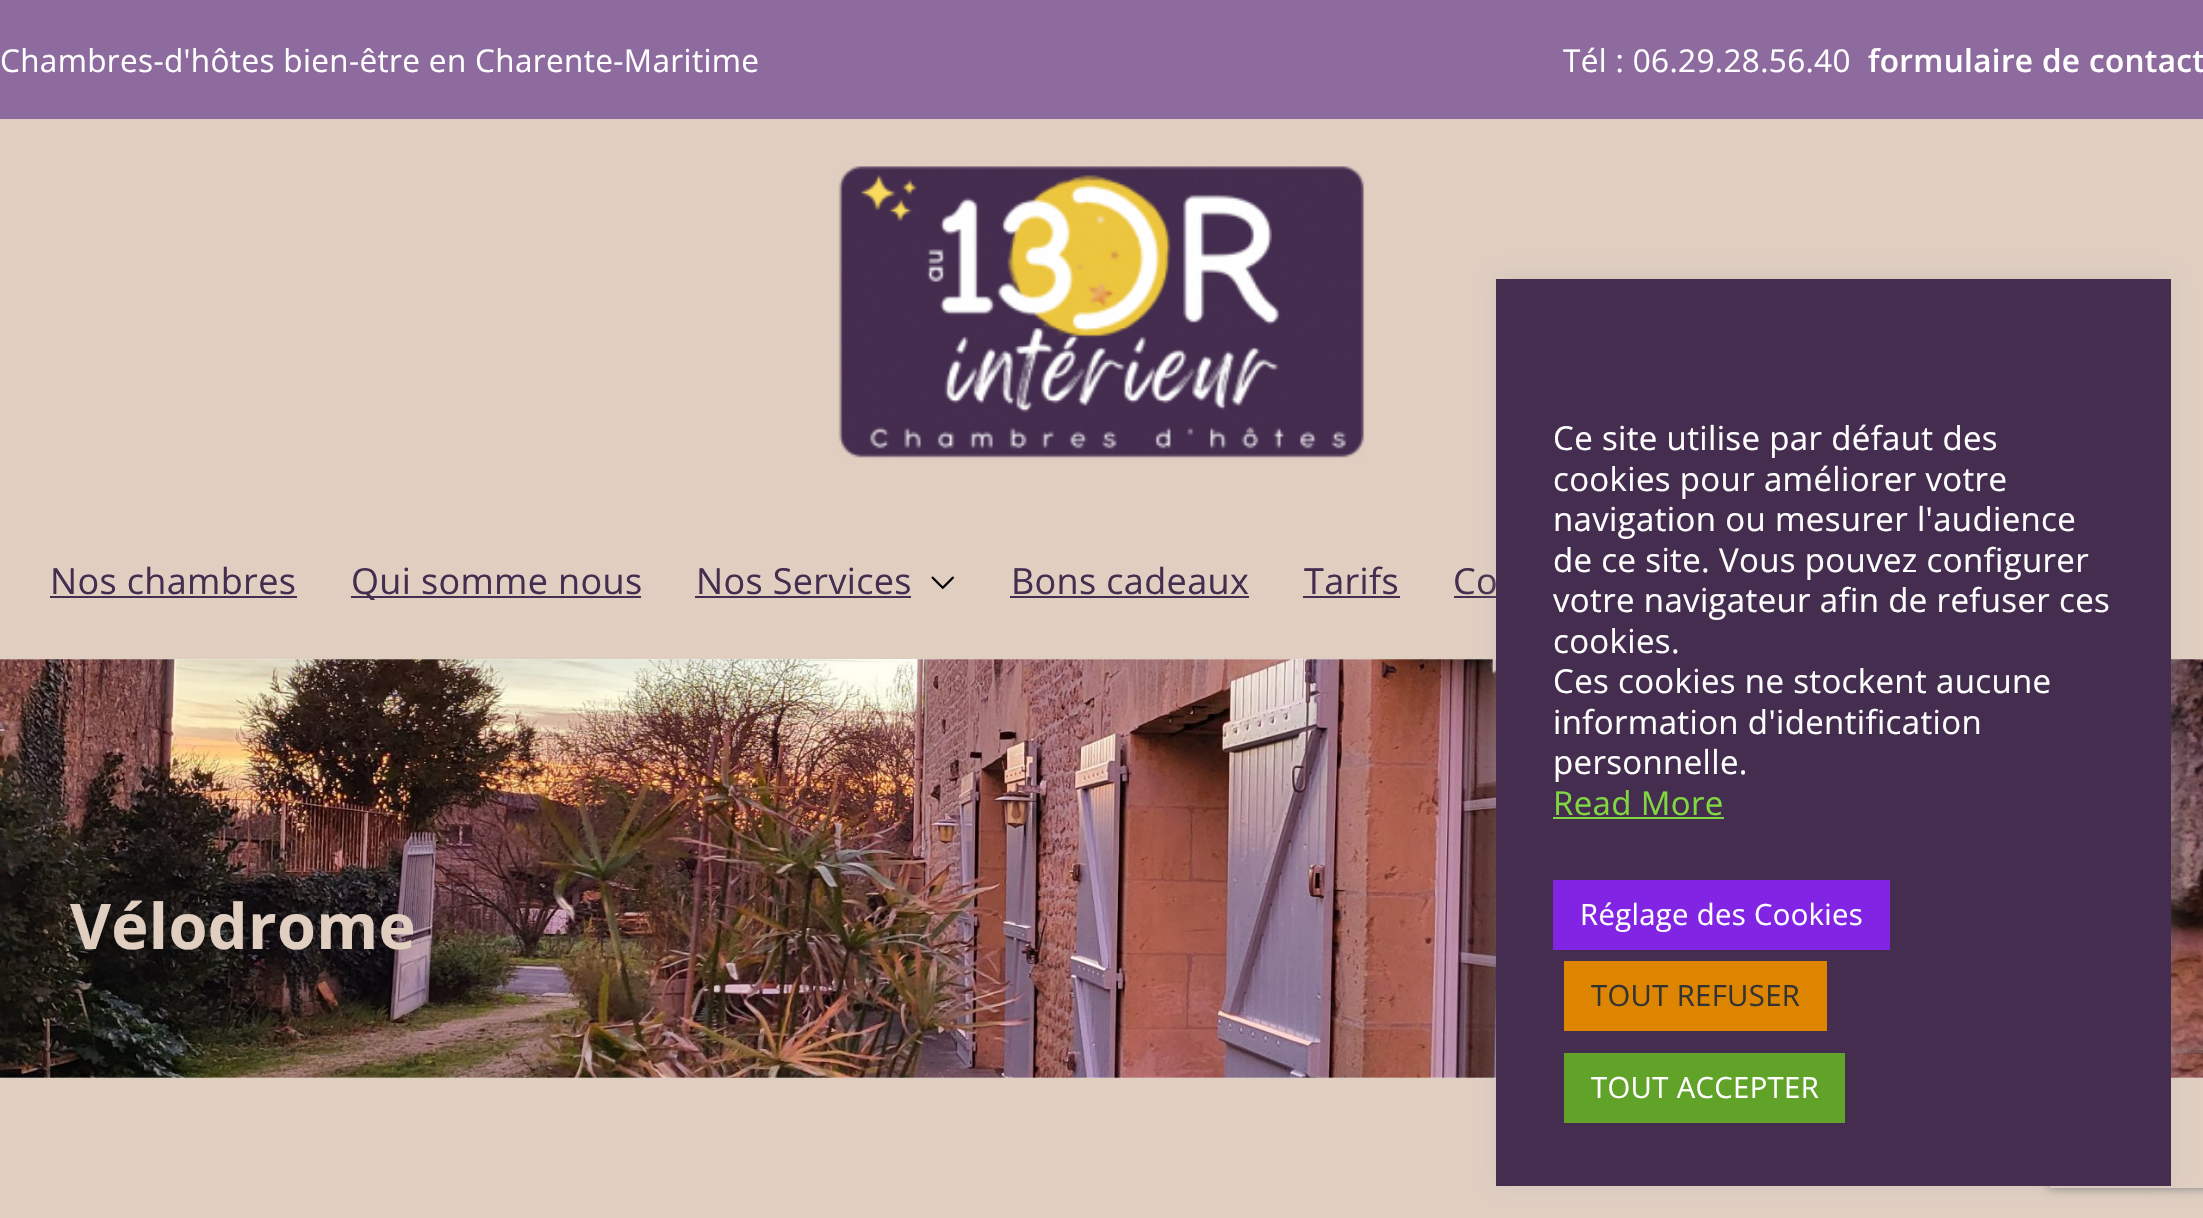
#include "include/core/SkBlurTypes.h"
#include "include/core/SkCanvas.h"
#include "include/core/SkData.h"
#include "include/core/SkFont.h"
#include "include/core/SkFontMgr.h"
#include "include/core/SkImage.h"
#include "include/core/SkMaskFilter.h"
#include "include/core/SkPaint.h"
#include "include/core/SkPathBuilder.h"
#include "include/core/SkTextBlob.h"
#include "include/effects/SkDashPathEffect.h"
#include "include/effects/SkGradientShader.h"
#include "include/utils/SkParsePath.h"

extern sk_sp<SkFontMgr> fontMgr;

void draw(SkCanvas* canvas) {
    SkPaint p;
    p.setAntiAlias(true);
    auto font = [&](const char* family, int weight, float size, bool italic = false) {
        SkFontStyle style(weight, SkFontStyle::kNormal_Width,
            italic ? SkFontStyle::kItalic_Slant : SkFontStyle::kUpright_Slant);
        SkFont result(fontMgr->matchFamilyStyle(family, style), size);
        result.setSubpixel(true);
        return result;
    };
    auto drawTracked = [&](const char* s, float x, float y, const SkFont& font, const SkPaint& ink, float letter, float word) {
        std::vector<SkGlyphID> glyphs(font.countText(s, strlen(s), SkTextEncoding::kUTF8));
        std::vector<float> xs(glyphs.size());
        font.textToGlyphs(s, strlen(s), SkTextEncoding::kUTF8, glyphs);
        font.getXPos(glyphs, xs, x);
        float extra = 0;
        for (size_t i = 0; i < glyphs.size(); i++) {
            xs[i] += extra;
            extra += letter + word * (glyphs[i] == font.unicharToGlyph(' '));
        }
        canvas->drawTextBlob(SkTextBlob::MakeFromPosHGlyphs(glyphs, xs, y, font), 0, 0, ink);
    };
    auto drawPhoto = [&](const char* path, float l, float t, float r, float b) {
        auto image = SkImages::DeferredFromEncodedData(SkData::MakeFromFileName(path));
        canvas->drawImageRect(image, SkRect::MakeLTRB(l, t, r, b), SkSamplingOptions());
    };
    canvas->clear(0xFFFFFFFF);
    p.setColor(0xFF8E6B9E);
    canvas->drawRect(SkRect::MakeLTRB(0, 0, 2203, 119), p);
    auto font1 = font("Open Sans", 400, 31.5f);
    p.setColor(0xFFFFFFFF);
    drawTracked("Chambres-d'hôtes bien-être en Charente-Maritime", 0, 72, font1, p, 0.35f, 0);
    drawTracked("Tél : 06.29.28.56.40", 1563, 72, font1, p, 0.35f, 0);
    auto font2 = font("Open Sans", 600, 31.5f);
    drawTracked("formulaire de contact", 1868, 72, font2, p, 0.35f, 0);
    p.setColor(0xFFE0CEC1);
    canvas->drawRect(SkRect::MakeLTRB(0, 119, 2203, 659), p);
    drawPhoto("media/1.png", 838, 166, 1365, 458);
    auto font3 = font("Open Sans", 400, 36);
    p.setColor(0xFF452D50);
    drawTracked("Nos chambres", 50, 594, font3, p, 0.35f, 0);
    canvas->drawRect(SkRect::MakeLTRB(50, 596, 297, 598), p);
    canvas->drawRect(SkRect::MakeLTRB(351, 596, 641, 598), p);
    drawTracked("Qui somme nous", 351, 594, font3, p, 0.35f, 0);
    drawTracked("Nos Services", 696, 594, font3, p, 0.35f, 0);
    canvas->drawRect(SkRect::MakeLTRB(695, 596, 911, 598), p);
    drawPhoto("media/2.png", 931, 576, 954, 589);
    drawTracked("Bons cadeaux", 1011, 594, font3, p, 0.35f, 0);
    canvas->drawRect(SkRect::MakeLTRB(1010, 596, 1249, 598), p);
    drawTracked("Tarifs", 1304, 594, font3, p, 0.35f, 0);
    canvas->drawRect(SkRect::MakeLTRB(1303, 596, 1400, 598), p);
    drawTracked("Co", 1453, 594, font3, p, 0.35f, 0);
    canvas->drawRect(SkRect::MakeLTRB(1454, 596, 1496, 598), p);
    drawPhoto("media/3.png", 0, 659, 2203, 1078);
    auto font4 = font("Open Sans", 700, 63);
    p.setColor(0xFFE0CEC1);
    drawTracked("Vélodrome", 70, 949, font4, p, 0.35f, 0);
    canvas->drawRect(SkRect::MakeLTRB(0, 1078, 2203, 1218), p);
    p.setColor(0x4DACABAB);
    p.setMaskFilter(SkMaskFilter::MakeBlur(kNormal_SkBlurStyle, 11));
    canvas->drawRect(SkRect::MakeLTRB(1496, 277, 2171, 1184), p);
    p.setMaskFilter(nullptr);
    canvas->save();
    canvas->clipPath(SkPathBuilder(SkPathFillType::kEvenOdd).moveTo(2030, 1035).lineTo(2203, 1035).lineTo(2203, 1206).lineTo(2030, 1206).close().moveTo(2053, 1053).lineTo(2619, 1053).cubicTo(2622, 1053, 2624, 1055, 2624, 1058).lineTo(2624, 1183).cubicTo(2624, 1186, 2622, 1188, 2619, 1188).lineTo(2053, 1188).cubicTo(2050, 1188, 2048, 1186, 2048, 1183).lineTo(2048, 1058).cubicTo(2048, 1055, 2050, 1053, 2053, 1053).close().detach(), true);
    p.setColor(0xFF808080);
    p.setMaskFilter(SkMaskFilter::MakeBlur(kNormal_SkBlurStyle, 5.5f));
    canvas->drawRoundRect(SkRect::MakeLTRB(2048, 1053, 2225, 1188), 5, 5, p);
    p.setMaskFilter(nullptr);
    canvas->restore();
    p.setColor(0xFF452D50);
    canvas->drawRect(SkRect::MakeLTRB(1496, 279, 2171, 1186), p);
    auto font5 = font("Open Sans", 400, 33);
    p.setColor(0xFFFFFFFF);
    {
        const struct { const char* s; float x, y; } items[] = {
            {"Ce site utilise par défaut des", 1553, 450},
            {"cookies pour améliorer votre", 1553, 491},
            {"navigation ou mesurer l'audience", 1553, 531},
            {"de ce site. Vous pouvez configurer", 1553, 572},
            {"votre navigateur afin de refuser ces", 1553, 612},
            {"cookies.", 1553, 653},
            {"Ces cookies ne stockent aucune", 1553, 693},
            {"information d'identification", 1553, 734},
            {"personnelle.", 1553, 774},
        };
        for (auto [s, x, y] : items) {
            drawTracked(s, x, y, font5, p, 0.35f, 0);
        }
    }
    p.setColor(0xFF81D742);
    drawTracked("Read More", 1553, 815, font5, p, 0.35f, 0);
    canvas->drawRect(SkRect::MakeLTRB(1553, 817, 1724, 819), p);
    p.setColor(0xFF8224E3);
    canvas->drawRect(SkRect::MakeLTRB(1553, 880, 1890, 950), p);
    auto font6 = font("Open Sans", 400, 29.25f);
    p.setColor(0xFFFFFFFF);
    drawTracked("Réglage des Cookies", 1580, 925, font6, p, 0.35f, 0);
    p.setColor(0xFFDD8500);
    canvas->drawRect(SkRect::MakeLTRB(1564, 961, 1827, 1031), p);
    p.setColor(0xFF333333);
    drawTracked("TOUT REFUSER", 1591, 1006, font6, p, 0.35f, 0);
    p.setColor(0xFF61A229);
    canvas->drawRect(SkRect::MakeLTRB(1564, 1053, 1845, 1123), p);
    p.setColor(0xFFFFFFFF);
    drawTracked("TOUT ACCEPTER", 1591, 1098, font6, p, 0.35f, 0);
}
